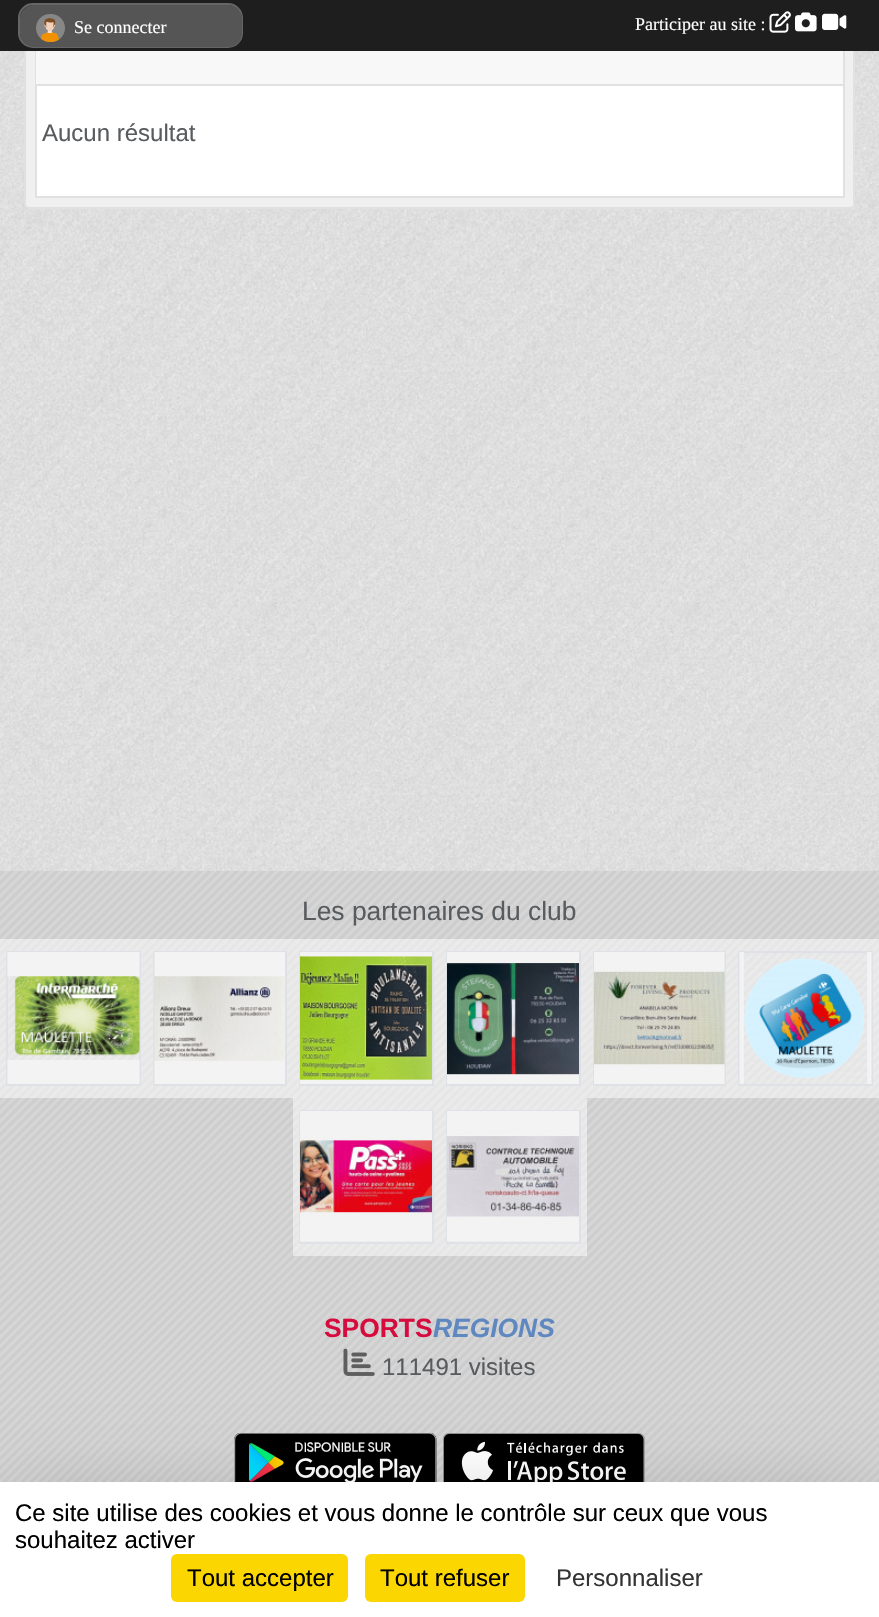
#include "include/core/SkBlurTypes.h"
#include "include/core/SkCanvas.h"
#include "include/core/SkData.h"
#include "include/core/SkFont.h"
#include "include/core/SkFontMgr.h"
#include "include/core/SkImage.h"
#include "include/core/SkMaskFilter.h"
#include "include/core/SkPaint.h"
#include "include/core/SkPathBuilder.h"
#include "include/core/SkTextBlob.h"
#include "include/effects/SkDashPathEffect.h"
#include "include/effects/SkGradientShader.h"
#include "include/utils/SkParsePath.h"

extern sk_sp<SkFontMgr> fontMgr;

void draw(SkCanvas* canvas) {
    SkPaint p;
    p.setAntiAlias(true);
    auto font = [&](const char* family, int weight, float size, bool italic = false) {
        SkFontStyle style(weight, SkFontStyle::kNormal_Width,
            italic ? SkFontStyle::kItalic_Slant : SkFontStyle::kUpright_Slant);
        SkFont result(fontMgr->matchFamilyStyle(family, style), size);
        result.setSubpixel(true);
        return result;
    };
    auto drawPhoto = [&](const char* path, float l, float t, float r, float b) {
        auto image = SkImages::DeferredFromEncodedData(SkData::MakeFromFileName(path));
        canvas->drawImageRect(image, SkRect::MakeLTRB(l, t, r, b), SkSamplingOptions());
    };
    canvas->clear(0xFFFFFFFF);
    drawPhoto("media/1.png", 0, 51, 879, 871);
    p.setColor(0xFFF0F0F0);
    canvas->drawRoundRect(SkRect::MakeLTRB(25, -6, 854, 208), 4, 4, p);
    p.setStyle(SkPaint::kStroke_Style);
    p.setStrokeWidth(2);
    p.setColor(0xFFE1E1E1);
    canvas->drawRoundRect(SkRect::MakeLTRB(25, -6, 854, 208), 4, 4, p);
    p.setStyle(SkPaint::kFill_Style);
    p.setColor(0xFFFFFFFF);
    canvas->drawRect(SkRect::MakeLTRB(37, 86, 843, 196), p);
    p.setStyle(SkPaint::kStroke_Style);
    p.setColor(0xFFE1E1E1);
    canvas->drawRect(SkRect::MakeLTRB(36, -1, 844, 197), p);
    p.setStyle(SkPaint::kFill_Style);
    p.setColor(0xFF1E1E1E);
    canvas->drawRect(SkRect::MakeLTRB(0, 0, 879, 51), p);
    p.setColor(0xFF333333);
    canvas->drawRoundRect(SkRect::MakeLTRB(19, 4, 242, 47), 14, 14, p);
    p.setStyle(SkPaint::kStroke_Style);
    p.setColor(0xFF666666);
    canvas->drawRoundRect(SkRect::MakeLTRB(19, 4, 242, 47), 14, 14, p);
    p.setStyle(SkPaint::kFill_Style);
    p.setColor(0xFF555555);
    canvas->drawRoundRect(SkRect::MakeLTRB(20, 5, 242, 47), 14, 14, p);
    drawPhoto("media/2.png", 36, 14, 65, 42);
    auto font1 = font("Liberation Serif", 400, 18);
    p.setColor(0xFFFFFFFF);
    canvas->drawString("Se connecter", 74, 33, font1, p);
    canvas->drawString("Participer au site :", 635, 30, font1, p);
    drawPhoto("media/3.png", 769, 11, 791, 33);
    drawPhoto("media/4.png", 795, 12, 817, 32);
    drawPhoto("media/5.png", 822, 13, 847, 30);
    p.setColor(0xFFF8F8F8);
    canvas->drawRect(SkRect::MakeLTRB(36, 51, 843, 84), p);
    p.setColor(0xFFE1E1E1);
    canvas->drawRect(SkRect::MakeLTRB(36, 84, 843, 86), p);
    auto font2 = font("Liberation Sans", 400, 24);
    p.setColor(0xFF595C5F);
    canvas->drawString("Aucun résultat", 42, 141, font2, p);
    drawPhoto("media/6.png", 0, 871, 879, 1482);
    auto font3 = font("Liberation Sans", 400, 26.4f);
    canvas->drawString("Les partenaires du club", 302, 920, font3, p);
    p.setColor(0x80FFFFFF);
    canvas->drawRect(SkRect::MakeLTRB(0, 939, 147, 1098), p);
    p.setStyle(SkPaint::kStroke_Style);
    p.setColor(0xFFDEE2E6);
    canvas->drawRect(SkRect::MakeLTRB(7, 952, 140, 1085), p);
    drawPhoto("media/7.png", 7, 952, 140, 1084);
    p.setStyle(SkPaint::kFill_Style);
    p.setColor(0x80FFFFFF);
    canvas->drawRect(SkRect::MakeLTRB(147, 939, 293, 1098), p);
    p.setStyle(SkPaint::kStroke_Style);
    p.setColor(0xFFDEE2E6);
    canvas->drawRect(SkRect::MakeLTRB(154, 952, 286, 1085), p);
    drawPhoto("media/8.png", 154, 952, 285, 1084);
    p.setStyle(SkPaint::kFill_Style);
    p.setColor(0x80FFFFFF);
    canvas->drawRect(SkRect::MakeLTRB(293, 939, 440, 1098), p);
    p.setStyle(SkPaint::kStroke_Style);
    p.setColor(0xFFDEE2E6);
    canvas->drawRect(SkRect::MakeLTRB(300, 952, 433, 1085), p);
    drawPhoto("media/9.png", 300, 952, 432, 1084);
    p.setStyle(SkPaint::kFill_Style);
    p.setColor(0x80FFFFFF);
    canvas->drawRect(SkRect::MakeLTRB(440, 939, 587, 1098), p);
    p.setStyle(SkPaint::kStroke_Style);
    p.setColor(0xFFDEE2E6);
    canvas->drawRect(SkRect::MakeLTRB(447, 952, 580, 1085), p);
    drawPhoto("media/10.png", 447, 952, 579, 1084);
    p.setStyle(SkPaint::kFill_Style);
    p.setColor(0x80FFFFFF);
    canvas->drawRect(SkRect::MakeLTRB(587, 939, 732, 1098), p);
    p.setStyle(SkPaint::kStroke_Style);
    p.setColor(0xFFDEE2E6);
    canvas->drawRect(SkRect::MakeLTRB(594, 952, 725, 1085), p);
    drawPhoto("media/11.png", 594, 952, 725, 1084);
    p.setStyle(SkPaint::kFill_Style);
    p.setColor(0x80FFFFFF);
    canvas->drawRect(SkRect::MakeLTRB(732, 939, 879, 1098), p);
    p.setStyle(SkPaint::kStroke_Style);
    p.setColor(0xFFDEE2E6);
    canvas->drawRect(SkRect::MakeLTRB(739, 952, 872, 1085), p);
    drawPhoto("media/12.png", 739, 952, 872, 1084);
    p.setStyle(SkPaint::kFill_Style);
    p.setColor(0x80FFFFFF);
    canvas->drawRect(SkRect::MakeLTRB(293, 1098, 440, 1256), p);
    p.setStyle(SkPaint::kStroke_Style);
    p.setColor(0xFFDEE2E6);
    canvas->drawRect(SkRect::MakeLTRB(300, 1111, 433, 1243), p);
    drawPhoto("media/13.png", 300, 1111, 432, 1242);
    p.setStyle(SkPaint::kFill_Style);
    p.setColor(0x80FFFFFF);
    canvas->drawRect(SkRect::MakeLTRB(440, 1098, 587, 1256), p);
    p.setStyle(SkPaint::kStroke_Style);
    p.setColor(0xFFDEE2E6);
    canvas->drawRect(SkRect::MakeLTRB(447, 1111, 580, 1243), p);
    drawPhoto("media/14.png", 447, 1111, 579, 1242);
    auto font4 = font("Liberation Sans", 700, 26.4f);
    p.setStyle(SkPaint::kFill_Style);
    p.setColor(0xFFD60C3E);
    canvas->drawString("SPORTS", 324, 1337, font4, p);
    auto font5 = font("Liberation Sans", 700, 26.4f, true);
    p.setColor(0xFF5F88C0);
    canvas->drawString("REGIONS", 433, 1337, font5, p);
    drawPhoto("media/15.png", 343, 1348, 375, 1376);
    p.setColor(0xFF595C5F);
    canvas->drawString("111491 visites", 382, 1375, font2, p);
    drawPhoto("media/16.png", 234, 1433, 437, 1482);
    drawPhoto("media/17.png", 443, 1433, 645, 1482);
    p.setColor(0x40000000);
    p.setMaskFilter(SkMaskFilter::MakeBlur(kNormal_SkBlurStyle, 45));
    canvas->drawRect(SkRect::MakeLTRB(0, 1512, 879, 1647), p);
    p.setMaskFilter(nullptr);
    p.setColor(0xFFFFFFFF);
    canvas->drawRect(SkRect::MakeLTRB(0, 1482, 879, 1617), p);
    p.setColor(0xFF000000);
    canvas->drawString("Ce site utilise des cookies et vous donne le contrôle sur ceux que vous", 15, 1521, font2, p);
    canvas->drawString("souhaitez activer", 15, 1548, font2, p);
    p.setColor(0xFFFBD600);
    canvas->drawRoundRect(SkRect::MakeLTRB(171, 1554, 348, 1602), 6, 6, p);
    p.setColor(0xFF000000);
    canvas->drawString("Tout accepter", 187, 1586, font2, p);
    p.setColor(0xFFFBD600);
    canvas->drawRoundRect(SkRect::MakeLTRB(365, 1554, 525, 1602), 6, 6, p);
    p.setColor(0xFF000000);
    canvas->drawString("Tout refuser", 380, 1586, font2, p);
    p.setColor(0xFF333333);
    canvas->drawString("Personnaliser", 556, 1586, font2, p);
}
